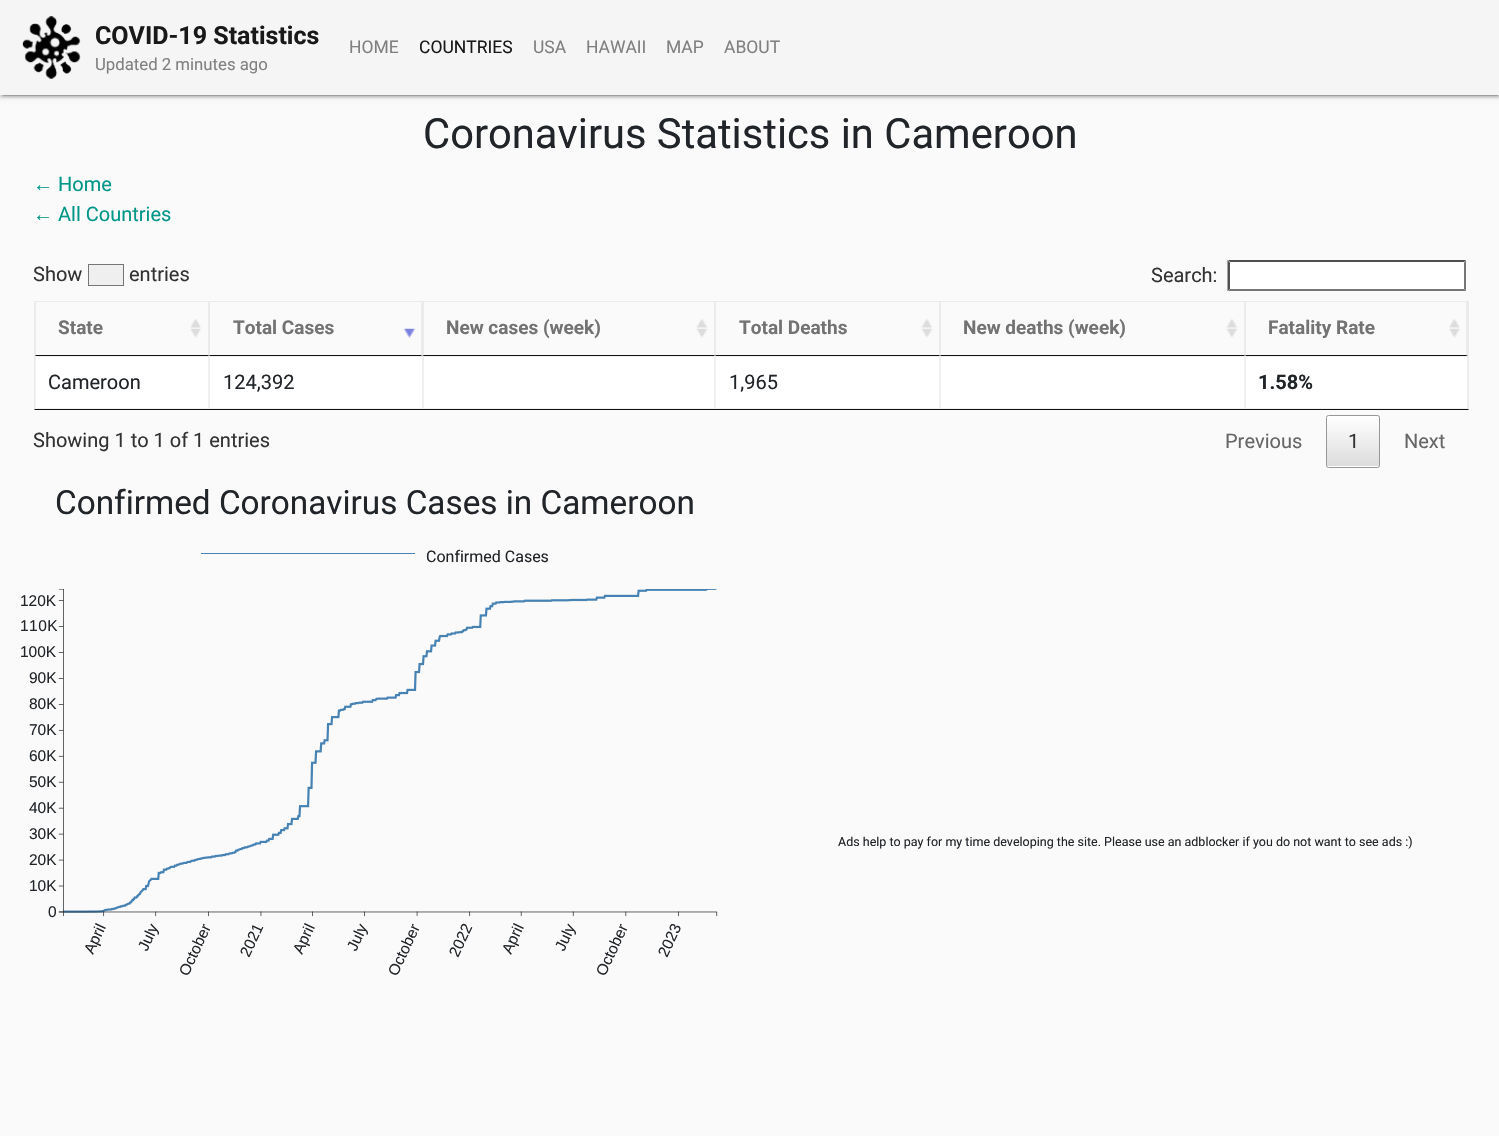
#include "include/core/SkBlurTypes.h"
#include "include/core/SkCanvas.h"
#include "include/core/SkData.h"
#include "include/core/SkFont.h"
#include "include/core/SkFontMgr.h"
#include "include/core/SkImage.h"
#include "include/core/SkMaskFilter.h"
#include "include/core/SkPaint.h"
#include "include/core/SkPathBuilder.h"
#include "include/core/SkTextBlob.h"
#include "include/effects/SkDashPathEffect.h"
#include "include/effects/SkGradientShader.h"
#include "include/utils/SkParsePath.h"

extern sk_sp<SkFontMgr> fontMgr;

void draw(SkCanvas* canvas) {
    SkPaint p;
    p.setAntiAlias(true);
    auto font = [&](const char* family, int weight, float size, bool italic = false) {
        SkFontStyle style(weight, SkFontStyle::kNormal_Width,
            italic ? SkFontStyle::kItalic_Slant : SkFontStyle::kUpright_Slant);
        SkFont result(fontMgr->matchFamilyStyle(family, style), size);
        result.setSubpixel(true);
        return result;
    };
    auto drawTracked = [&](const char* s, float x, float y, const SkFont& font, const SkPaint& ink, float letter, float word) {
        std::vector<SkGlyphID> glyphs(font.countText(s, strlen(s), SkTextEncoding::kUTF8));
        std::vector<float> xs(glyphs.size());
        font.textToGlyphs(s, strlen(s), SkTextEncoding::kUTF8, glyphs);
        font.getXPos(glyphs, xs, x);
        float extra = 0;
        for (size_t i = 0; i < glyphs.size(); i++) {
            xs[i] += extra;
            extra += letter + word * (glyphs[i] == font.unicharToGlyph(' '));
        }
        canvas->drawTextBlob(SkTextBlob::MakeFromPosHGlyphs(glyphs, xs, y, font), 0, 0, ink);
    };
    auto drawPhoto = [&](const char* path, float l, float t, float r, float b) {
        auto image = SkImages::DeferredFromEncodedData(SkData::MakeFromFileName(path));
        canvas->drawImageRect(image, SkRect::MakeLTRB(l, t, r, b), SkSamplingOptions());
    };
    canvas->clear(0xFFFAFAFA);
    p.setColor(0x1F000000);
    p.setMaskFilter(SkMaskFilter::MakeBlur(kNormal_SkBlurStyle, 3));
    canvas->drawRect(SkRect::MakeLTRB(0, 1, 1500, 96), p);
    p.setMaskFilter(nullptr);
    p.setColor(0x33000000);
    p.setMaskFilter(SkMaskFilter::MakeBlur(kNormal_SkBlurStyle, 0.5f));
    canvas->drawRect(SkRect::MakeLTRB(3, 6, 1498, 96), p);
    p.setMaskFilter(nullptr);
    p.setColor(0x24000000);
    p.setMaskFilter(SkMaskFilter::MakeBlur(kNormal_SkBlurStyle, 1));
    canvas->drawRect(SkRect::MakeLTRB(0, 3, 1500, 98), p);
    p.setMaskFilter(nullptr);
    p.setColor(0xFFF5F5F5);
    canvas->drawRect(SkRect::MakeLTRB(0, 0, 1499, 95), p);
    drawPhoto("media/1.png", 22, 16, 81, 79);
    auto font1 = font("Roboto", 700, 25);
    p.setColor(0xFF191919);
    canvas->drawString("COVID-19 Statistics", 95, 44, font1, p);
    auto font2 = font("Roboto", 400, 16.75f);
    p.setColor(0xFF808080);
    canvas->drawString("Updated 2 minutes ago", 95, 70, font2, p);
    auto font3 = font("Roboto", 400, 17.5f);
    canvas->drawString("HOME", 349, 53, font3, p);
    p.setColor(0xFF191919);
    canvas->drawString("COUNTRIES", 419, 53, font3, p);
    p.setColor(0xFF808080);
    {
        const struct { const char* s; float x, y; } items[] = {
            {"USA", 533, 53},
            {"HAWAII", 586, 53},
            {"MAP", 666, 53},
            {"ABOUT", 724, 53},
        };
        for (auto [s, x, y] : items) {
            canvas->drawString(s, x, y, font3, p);
        }
    }
    auto font4 = font("Roboto", 400, 41.7f);
    p.setColor(0xFF212529);
    canvas->drawString("Coronavirus Statistics in Cameroon", 423, 148, font4, p);
    auto font5 = font("Liberation Sans", 400, 20);
    p.setColor(0xFF009688);
    canvas->drawString("←", 33, 191, font5, p);
    auto font6 = font("Roboto", 400, 20);
    canvas->drawString("Home", 58, 191, font6, p);
    canvas->drawString("←", 33, 221, font5, p);
    canvas->drawString("All Countries", 58, 221, font6, p);
    p.setColor(0xFF333333);
    canvas->drawString("Show", 33, 281, font6, p);
    p.setColor(0xFFEFEFEF);
    canvas->drawRect(SkRect::MakeLTRB(88.5f, 264.5f, 123.5f, 285.5f), p);
    p.setStyle(SkPaint::kStroke_Style);
    p.setStrokeWidth(1);
    p.setColor(0xFF767676);
    canvas->drawRect(SkRect::MakeLTRB(88.5f, 264.5f, 123.5f, 285.5f), p);
    p.setStyle(SkPaint::kFill_Style);
    p.setColor(0xFF333333);
    canvas->drawString("entries", 129, 281, font6, p);
    canvas->drawString("Search:", 1151, 282, font6, p);
    p.setColor(0xFFFFFFFF);
    canvas->drawRect(SkRect::MakeLTRB(1228, 260, 1466, 291), p);
    p.setColor(0xFF4F4F4F);
    canvas->drawPath(SkPathBuilder().moveTo(1228, 260).lineTo(1466, 260).lineTo(1464, 262).lineTo(1230, 262).close().detach(), p);
    p.setColor(0xFF767676);
    canvas->drawPath(SkPathBuilder().moveTo(1466, 260).lineTo(1466, 291).lineTo(1464, 289).lineTo(1464, 262.5f).close().detach(), p);
    canvas->drawPath(SkPathBuilder().moveTo(1466, 291).lineTo(1228, 291).lineTo(1230, 289).lineTo(1464, 289).close().detach(), p);
    p.setColor(0xFF4F4F4F);
    canvas->drawPath(SkPathBuilder().moveTo(1227.5f, 291).lineTo(1227.5f, 260).lineTo(1230, 262.5f).lineTo(1230, 289).close().detach(), p);
    p.setColor(0xFFEBEBEB);
    canvas->drawPath(SkPathBuilder().moveTo(34, 301).lineTo(1469, 301).lineTo(1468, 302).lineTo(35, 302).close().detach(), p);
    p.setColor(0x0F000000);
    canvas->drawPath(SkPathBuilder().moveTo(1469, 301).lineTo(1469, 410).lineTo(1468, 409).lineTo(1468, 302).close().detach(), p);
    p.setColor(0xFF111111);
    canvas->drawPath(SkPathBuilder().moveTo(1469, 410).lineTo(34, 410).lineTo(35, 409).lineTo(1468, 409).close().detach(), p);
    p.setColor(0x0F000000);
    canvas->drawPath(SkPathBuilder().moveTo(34, 410).lineTo(34, 301).lineTo(35, 302).lineTo(35, 409).close().detach(), p);
    drawPhoto("media/2.png", 190, 319, 201, 338);
    p.setColor(0xFFEBEBEB);
    canvas->drawPath(SkPathBuilder().moveTo(209, 302).lineTo(209, 356).lineTo(208, 355).lineTo(208, 302).close().detach(), p);
    p.setColor(0xFF111111);
    canvas->drawPath(SkPathBuilder().moveTo(209, 356).lineTo(35, 356).lineTo(36, 355).lineTo(208, 355).close().detach(), p);
    p.setColor(0x0F000000);
    canvas->drawPath(SkPathBuilder().moveTo(35, 356).lineTo(35, 302).lineTo(36, 302).lineTo(36, 355).close().detach(), p);
    auto font7 = font("Roboto", 700, 19);
    p.setColor(0xFF737373);
    canvas->drawString("State", 58, 334, font7, p);
    drawPhoto("media/3.png", 403, 328, 416, 338);
    p.setColor(0xFFEBEBEB);
    canvas->drawPath(SkPathBuilder().moveTo(422, 302).lineTo(422, 356).lineTo(421, 355).lineTo(421, 302).close().detach(), p);
    p.setColor(0xFF111111);
    canvas->drawPath(SkPathBuilder().moveTo(422, 356).lineTo(209, 356).lineTo(210, 355).lineTo(421, 355).close().detach(), p);
    p.setColor(0x0F000000);
    canvas->drawPath(SkPathBuilder().moveTo(209, 356).lineTo(209, 302).lineTo(210, 302).lineTo(210, 355).close().detach(), p);
    p.setColor(0xFF737373);
    canvas->drawString("Total Cases", 233, 334, font7, p);
    drawPhoto("media/4.png", 696, 319, 708, 338);
    p.setColor(0xFFEBEBEB);
    canvas->drawPath(SkPathBuilder().moveTo(715, 302).lineTo(715, 356).lineTo(714, 355).lineTo(714, 302).close().detach(), p);
    p.setColor(0xFF111111);
    canvas->drawPath(SkPathBuilder().moveTo(715, 356).lineTo(422, 356).lineTo(424, 355).lineTo(714, 355).close().detach(), p);
    p.setColor(0x0F000000);
    canvas->drawPath(SkPathBuilder().moveTo(422, 356).lineTo(422, 302).lineTo(424, 302).lineTo(424, 355).close().detach(), p);
    p.setColor(0xFF737373);
    canvas->drawString("New cases (week)", 446, 334, font7, p);
    drawPhoto("media/5.png", 921, 319, 933, 338);
    p.setColor(0xFFEBEBEB);
    canvas->drawPath(SkPathBuilder().moveTo(940, 302).lineTo(940, 356).lineTo(939, 355).lineTo(939, 302).close().detach(), p);
    p.setColor(0xFF111111);
    canvas->drawPath(SkPathBuilder().moveTo(940, 356).lineTo(715, 356).lineTo(716, 355).lineTo(939, 355).close().detach(), p);
    p.setColor(0x0F000000);
    canvas->drawPath(SkPathBuilder().moveTo(715, 356).lineTo(715, 302).lineTo(716, 302).lineTo(716, 355).close().detach(), p);
    p.setColor(0xFF737373);
    canvas->drawString("Total Deaths", 739, 334, font7, p);
    drawPhoto("media/5.png", 1226, 319, 1238, 338);
    p.setColor(0xFFEBEBEB);
    canvas->drawPath(SkPathBuilder().moveTo(1245, 302).lineTo(1245, 356).lineTo(1244, 355).lineTo(1244, 302).close().detach(), p);
    p.setColor(0xFF111111);
    canvas->drawPath(SkPathBuilder().moveTo(1245, 356).lineTo(940, 356).lineTo(941, 355).lineTo(1244, 355).close().detach(), p);
    p.setColor(0x0F000000);
    canvas->drawPath(SkPathBuilder().moveTo(940, 356).lineTo(940, 302).lineTo(941, 302).lineTo(941, 355).close().detach(), p);
    p.setColor(0xFF737373);
    canvas->drawString("New deaths (week)", 963, 334, font7, p);
    drawPhoto("media/6.png", 1449, 319, 1460, 338);
    p.setColor(0xFFEBEBEB);
    canvas->drawPath(SkPathBuilder().moveTo(1468, 302).lineTo(1468, 356).lineTo(1466, 355).lineTo(1466, 302).close().detach(), p);
    p.setColor(0xFF111111);
    canvas->drawPath(SkPathBuilder().moveTo(1468, 356).lineTo(1245, 356).lineTo(1246, 355).lineTo(1466, 355).close().detach(), p);
    p.setColor(0x0F000000);
    canvas->drawPath(SkPathBuilder().moveTo(1245, 356).lineTo(1245, 302).lineTo(1246, 302).lineTo(1246, 355).close().detach(), p);
    p.setColor(0xFF737373);
    canvas->drawString("Fatality Rate", 1268, 334, font7, p);
    p.setColor(0xFFFFFFFF);
    canvas->drawRect(SkRect::MakeLTRB(36, 357, 1467, 408), p);
    p.setStyle(SkPaint::kStroke_Style);
    p.setColor(0xFFF0F0F0);
    canvas->drawRect(SkRect::MakeLTRB(35.5f, 356.5f, 208.5f, 408.5f), p);
    p.setStyle(SkPaint::kFill_Style);
    p.setColor(0xFF212529);
    canvas->drawString("Cameroon", 48, 389, font6, p);
    p.setStyle(SkPaint::kStroke_Style);
    p.setColor(0xFFF0F0F0);
    canvas->drawRect(SkRect::MakeLTRB(209.5f, 356.5f, 422.5f, 408.5f), p);
    p.setStyle(SkPaint::kFill_Style);
    p.setColor(0xFF212529);
    canvas->drawString("124,392", 223, 389, font6, p);
    p.setStyle(SkPaint::kStroke_Style);
    p.setColor(0xFFF0F0F0);
    canvas->drawRect(SkRect::MakeLTRB(423.5f, 356.5f, 714.5f, 408.5f), p);
    canvas->drawRect(SkRect::MakeLTRB(715.5f, 356.5f, 939.5f, 408.5f), p);
    p.setStyle(SkPaint::kFill_Style);
    p.setColor(0xFF212529);
    canvas->drawString("1,965", 729, 389, font6, p);
    p.setStyle(SkPaint::kStroke_Style);
    p.setColor(0xFFF0F0F0);
    canvas->drawRect(SkRect::MakeLTRB(940.5f, 356.5f, 1244.5f, 408.5f), p);
    canvas->drawRect(SkRect::MakeLTRB(1245.5f, 356.5f, 1467.5f, 408.5f), p);
    auto font8 = font("Roboto", 700, 20);
    p.setStyle(SkPaint::kFill_Style);
    p.setColor(0xFF212529);
    canvas->drawString("1.58%", 1258, 389, font8, p);
    p.setColor(0xFF333333);
    canvas->drawString("Showing 1 to 1 of 1 entries", 33, 447, font6, p);
    p.setColor(0xFF666666);
    canvas->drawString("Previous", 1225, 448, font6, p);
    {
        const SkColor colors[] = {0xFFFFFFFF, 0xFFDCDCDC};
        const float stops[] = {0, 1};
        const SkPoint ends[] = {{1353, 416}, {1353, 466}};
        p.setShader(SkGradientShader::MakeLinear(ends, colors, stops, 2, SkTileMode::kClamp));
        p.setAlpha(255);
    }
    canvas->drawRect(SkRect::MakeLTRB(1326, 416, 1380, 466), p);
    canvas->save();
    canvas->clipPath(SkPathBuilder().moveTo(1328.5f, 415).lineTo(1377.5f, 415).cubicTo(1379, 415, 1380, 416, 1380, 417.5f).lineTo(1380, 465.5f).cubicTo(1380, 467, 1379, 468, 1377.5f, 468).lineTo(1328.5f, 468).cubicTo(1327, 468, 1326, 467, 1326, 465.5f).lineTo(1326, 417.5f).cubicTo(1326, 416, 1327, 415, 1328.5f, 415).close().detach(), true);
    {
        const SkColor colors[] = {0xFFFFFFFF, 0xFFDCDCDC};
        const float stops[] = {0, 1};
        const SkPoint ends[] = {{1353, 466}, {1353, 516}};
        p.setShader(SkGradientShader::MakeLinear(ends, colors, stops, 2, SkTileMode::kClamp));
        p.setAlpha(255);
    }
    canvas->drawRect(SkRect::MakeLTRB(1326, 466, 1380, 468), p);
    canvas->restore();
    p.setStyle(SkPaint::kStroke_Style);
    p.setShader(nullptr);
    p.setColor(0xFF979797);
    canvas->drawRoundRect(SkRect::MakeLTRB(1326.5f, 415.5f, 1379.5f, 467.5f), 2, 2, p);
    p.setStyle(SkPaint::kFill_Style);
    p.setColor(0xFF333333);
    canvas->drawString("1", 1348, 448, font6, p);
    p.setColor(0xFF666666);
    canvas->drawString("Next", 1404, 448, font6, p);
    auto font9 = font("Roboto", 400, 33.3f);
    p.setColor(0xFF212529);
    canvas->drawString("Confirmed Coronavirus Cases in Cameroon", 55, 514, font9, p);
    p.setColor(0xFF4682B4);
    canvas->drawRect(SkRect::MakeLTRB(201, 553, 415, 554), p);
    auto font10 = font("Roboto", 400, 16);
    p.setColor(0xFF212529);
    canvas->drawString("Confirmed Cases", 426, 562, font10, p);
    auto font11 = font("Liberation Sans", 400, 15.5f);
    canvas->drawString("120K", 20, 606, font11, p);
    drawPhoto("media/7.png", 58, 589, 718, 917);
    drawTracked("110K", 20, 631, font11, p, 0.5f, 0);
    {
        const struct { const char* s; float x, y; } items[] = {
            {"100K", 20, 657},
            {"90K", 29, 683},
            {"80K", 29, 709},
            {"70K", 29, 735},
            {"60K", 29, 761},
            {"50K", 29, 787},
            {"40K", 29, 813},
            {"30K", 29, 839},
            {"20K", 29, 865},
            {"10K", 29, 891},
            {"0", 48, 917},
        };
        for (auto [s, x, y] : items) {
            canvas->drawString(s, x, y, font11, p);
        }
    }
    canvas->save();
    canvas->rotate(-65, 93, 955);
    canvas->drawString("April", 93, 955, font11, p);
    canvas->restore();
    canvas->save();
    canvas->rotate(-65, 147, 952);
    canvas->drawString("July", 147, 952, font11, p);
    canvas->restore();
    canvas->save();
    canvas->rotate(-65, 188, 977);
    canvas->drawString("October", 188, 977, font11, p);
    canvas->restore();
    canvas->save();
    canvas->rotate(-65, 249, 958);
    canvas->drawString("2021", 249, 958, font11, p);
    canvas->restore();
    canvas->save();
    canvas->rotate(-65, 302, 955);
    canvas->drawString("April", 302, 955, font11, p);
    canvas->restore();
    canvas->save();
    canvas->rotate(-65, 356, 952);
    canvas->drawString("July", 356, 952, font11, p);
    canvas->restore();
    canvas->save();
    canvas->rotate(-65, 397, 977);
    canvas->drawString("October", 397, 977, font11, p);
    canvas->restore();
    canvas->save();
    canvas->rotate(-65, 458, 958);
    canvas->drawString("2022", 458, 958, font11, p);
    canvas->restore();
    canvas->save();
    canvas->rotate(-65, 511, 955);
    canvas->drawString("April", 511, 955, font11, p);
    canvas->restore();
    canvas->save();
    canvas->rotate(-65, 564, 952);
    canvas->drawString("July", 564, 952, font11, p);
    canvas->restore();
    canvas->save();
    canvas->rotate(-65, 605, 977);
    canvas->drawString("October", 605, 977, font11, p);
    canvas->restore();
    canvas->save();
    canvas->rotate(-65, 667, 958);
    canvas->drawString("2023", 667, 958, font11, p);
    canvas->restore();
    auto font12 = font("Roboto", 400, 12.5f);
    canvas->drawString("Ads help to pay for my time developing the site. Please use an adblocker if you do not want to see ads :)", 838, 846, font12, p);
}
